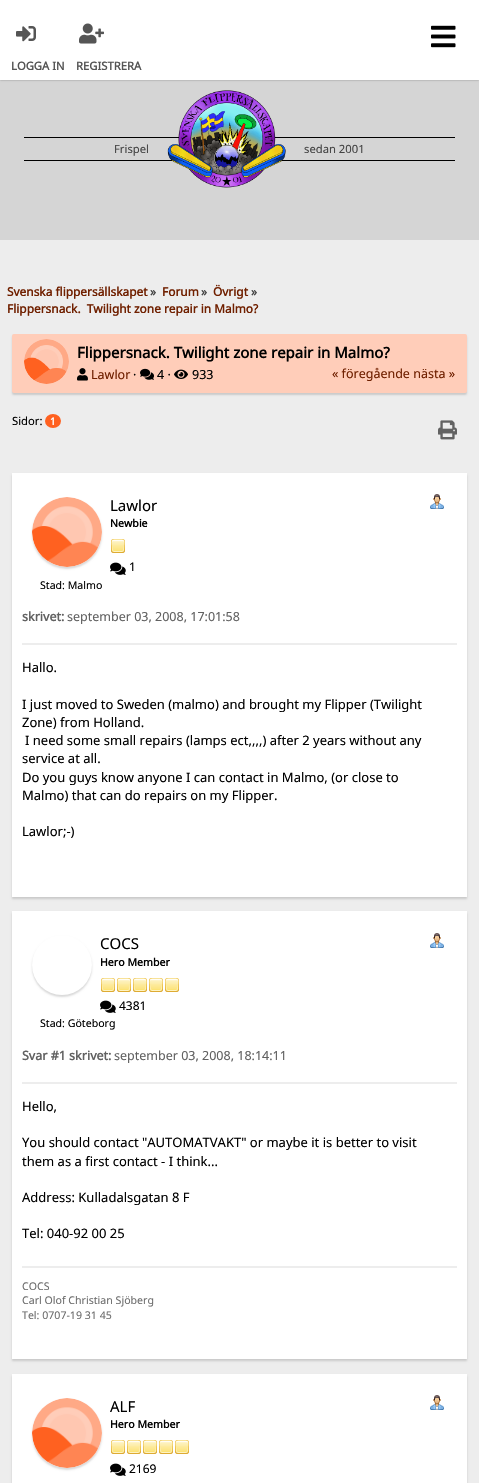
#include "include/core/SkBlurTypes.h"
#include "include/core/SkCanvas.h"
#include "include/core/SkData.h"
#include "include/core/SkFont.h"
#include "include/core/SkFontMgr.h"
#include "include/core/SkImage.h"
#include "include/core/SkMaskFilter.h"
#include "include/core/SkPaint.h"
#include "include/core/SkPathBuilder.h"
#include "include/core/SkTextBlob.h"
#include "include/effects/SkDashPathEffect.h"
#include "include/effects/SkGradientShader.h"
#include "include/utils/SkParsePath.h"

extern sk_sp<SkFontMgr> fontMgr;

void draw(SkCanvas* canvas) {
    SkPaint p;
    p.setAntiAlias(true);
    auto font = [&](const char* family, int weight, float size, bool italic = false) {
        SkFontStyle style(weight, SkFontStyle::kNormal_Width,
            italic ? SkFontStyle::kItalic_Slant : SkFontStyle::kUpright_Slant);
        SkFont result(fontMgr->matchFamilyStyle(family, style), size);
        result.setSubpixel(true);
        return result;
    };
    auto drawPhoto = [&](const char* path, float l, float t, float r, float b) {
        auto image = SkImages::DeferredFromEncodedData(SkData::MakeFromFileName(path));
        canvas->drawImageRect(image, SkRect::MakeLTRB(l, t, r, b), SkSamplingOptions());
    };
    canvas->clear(0xFFEDEDED);
    p.setColor(0xFFD5D5D5);
    canvas->drawRect(SkRect::MakeLTRB(0, 80, 479, 240), p);
    p.setColor(0x54000000);
    p.setMaskFilter(SkMaskFilter::MakeBlur(kNormal_SkBlurStyle, 1));
    canvas->drawRect(SkRect::MakeLTRB(0, 0, 479, 80), p);
    p.setMaskFilter(nullptr);
    p.setColor(0xFFFFFFFF);
    canvas->drawRect(SkRect::MakeLTRB(0, 0, 479, 80), p);
    drawPhoto("media/1.png", 431, 25, 456, 48);
    drawPhoto("media/2.png", 16, 26, 36, 42);
    auto font1 = font("Noto Sans", 700, 11.25f);
    p.setColor(0xFF555555);
    canvas->drawString("LOGGA IN", 11, 70, font1, p);
    drawPhoto("media/3.png", 79, 23, 104, 44);
    canvas->drawString("REGISTRERA", 76, 70, font1, p);
    p.setColor(0xFF000000);
    canvas->drawRect(SkRect::MakeLTRB(24, 137, 455, 138), p);
    canvas->drawRect(SkRect::MakeLTRB(24, 160, 455, 161), p);
    auto font2 = font("Noto Sans", 400, 11.25f);
    p.setColor(0xFF444444);
    canvas->drawString("Frispel", 114, 153, font2, p);
    drawPhoto("media/4.png", 167, 90, 286, 188);
    canvas->drawString("sedan 2001", 304, 153, font2, p);
    auto font3 = font("Noto Sans", 700, 11.9f);
    p.setColor(0xFF702000);
    canvas->drawString("Svenska flippersällskapet", 7, 296, font3, p);
    p.setColor(0xFF444444);
    canvas->drawString("»", 150, 296, font3, p);
    p.setColor(0xFF702000);
    canvas->drawString("Forum", 162, 296, font3, p);
    p.setColor(0xFF444444);
    canvas->drawString("»", 201, 296, font3, p);
    p.setColor(0xFF702000);
    canvas->drawString("Övrigt", 213, 296, font3, p);
    p.setColor(0xFF444444);
    canvas->drawString("»", 251, 296, font3, p);
    p.setColor(0xFF702000);
    canvas->drawString("Flippersnack.  Twilight zone repair in Malmo?", 7, 313, font3, p);
    p.setColor(0x26000000);
    p.setMaskFilter(SkMaskFilter::MakeBlur(kNormal_SkBlurStyle, 1));
    canvas->drawRoundRect(SkRect::MakeLTRB(12, 336, 467, 395), 2, 2, p);
    p.setMaskFilter(nullptr);
    p.setColor(0xFFFFCDB9);
    canvas->drawRoundRect(SkRect::MakeLTRB(12, 334, 467, 393), 2, 2, p);
    drawPhoto("media/5.png", 24, 339, 69, 384);
    auto font4 = font("Noto Sans", 700, 15);
    p.setColor(0xFF000000);
    canvas->drawString("Flippersnack. Twilight zone repair in Malmo?", 77, 358, font4, p);
    drawPhoto("media/6.png", 77, 368, 88, 381);
    auto font5 = font("Noto Sans", 400, 12.5f);
    p.setColor(0xFF702000);
    canvas->drawString("Lawlor", 91, 379, font5, p);
    p.setColor(0xFF000000);
    canvas->drawString("·", 133, 379, font5, p);
    drawPhoto("media/7.png", 140, 368, 154, 380);
    canvas->drawString("4 ·", 157, 379, font5, p);
    drawPhoto("media/8.png", 174, 369, 188, 379);
    canvas->drawString("933", 192, 379, font5, p);
    p.setColor(0xFF702000);
    canvas->drawString("« föregående nästa »", 332, 378, font5, p);
    p.setColor(0xFF000000);
    canvas->drawString("Sidor:", 12, 425, font2, p);
    p.setColor(0xFFFF6120);
    canvas->drawOval(SkRect::MakeLTRB(45, 414, 61, 428), p);
    auto font6 = font("Noto Sans", 700, 10);
    p.setColor(0xFFFFFFFF);
    canvas->drawString("1", 50, 425, font6, p);
    drawPhoto("media/9.png", 438, 420, 457, 440);
    p.setColor(0x26000000);
    p.setMaskFilter(SkMaskFilter::MakeBlur(kNormal_SkBlurStyle, 1));
    canvas->drawRect(SkRect::MakeLTRB(12, 475, 467, 899), p);
    p.setMaskFilter(nullptr);
    p.setColor(0xFFFFFFFF);
    canvas->drawRect(SkRect::MakeLTRB(12, 473, 467, 897), p);
    p.setColor(0x26000000);
    p.setMaskFilter(SkMaskFilter::MakeBlur(kNormal_SkBlurStyle, 1));
    canvas->drawRoundRect(SkRect::MakeLTRB(32, 499, 102, 569), 35, 35, p);
    p.setMaskFilter(nullptr);
    p.setColor(0xFFFFFFFF);
    canvas->drawCircle(67, 532, 35, p);
    drawPhoto("media/10.png", 32, 497, 102, 567);
    auto font7 = font("Noto Sans", 400, 15);
    p.setColor(0xFF000000);
    canvas->drawString("Lawlor", 110, 511, font7, p);
    drawPhoto("media/11.png", 430, 494, 444, 509);
    auto font8 = font("Noto Sans", 700, 10.6f);
    canvas->drawString("Newbie", 110, 527, font8, p);
    drawPhoto("media/12.png", 111, 539, 125, 553);
    drawPhoto("media/13.png", 110, 562, 126, 575);
    auto font9 = font("Noto Sans", 400, 12);
    canvas->drawString("1", 129, 571, font9, p);
    auto font10 = font("Noto Sans", 400, 10.6f);
    canvas->drawString("Stad: Malmo", 40, 589, font10, p);
    auto font11 = font("Noto Sans", 700, 12.5f);
    p.setColor(0xFF616161);
    canvas->drawString("skrivet:", 22, 621, font11, p);
    canvas->drawString("september 03, 2008, 17:01:58", 67, 621, font5, p);
    p.setColor(0xFFEDEDED);
    canvas->drawRect(SkRect::MakeLTRB(22, 643, 457, 645), p);
    auto font12 = font("Noto Sans", 400, 13);
    p.setColor(0xFF000000);
    {
        const struct { const char* s; float x, y; } items[] = {
            {"Hallo.", 22, 672},
            {"I just moved to Sweden (malmo) and brought my Flipper (Twilight", 22, 709},
            {"Zone) from Holland.", 22, 727},
            {"I need some small repairs (lamps ect,,,,) after 2 years without any", 25, 745},
            {"service at all.", 22, 763},
            {"Do you guys know anyone I can contact in Malmo, (or close to", 22, 782},
            {"Malmo) that can do repairs on my Flipper.", 22, 800},
            {"Lawlor;-)", 22, 836},
        };
        for (auto [s, x, y] : items) {
            canvas->drawString(s, x, y, font12, p);
        }
    }
    p.setColor(0x26000000);
    p.setMaskFilter(SkMaskFilter::MakeBlur(kNormal_SkBlurStyle, 1));
    canvas->drawRect(SkRect::MakeLTRB(12, 913, 467, 1361), p);
    p.setMaskFilter(nullptr);
    p.setColor(0xFFFFFFFF);
    canvas->drawRect(SkRect::MakeLTRB(12, 911, 467, 1359), p);
    p.setColor(0x26000000);
    p.setMaskFilter(SkMaskFilter::MakeBlur(kNormal_SkBlurStyle, 1));
    canvas->drawRoundRect(SkRect::MakeLTRB(32, 937, 92, 997), 30, 30, p);
    p.setMaskFilter(nullptr);
    p.setColor(0xFFFFFFFF);
    canvas->drawCircle(62, 965, 30, p);
    p.setColor(0xFF000000);
    canvas->drawString("COCS", 100, 949, font7, p);
    drawPhoto("media/11.png", 430, 933, 444, 948);
    canvas->drawString("Hero Member", 100, 966, font8, p);
    drawPhoto("media/12.png", 101, 978, 115, 992);
    drawPhoto("media/12.png", 117, 978, 131, 992);
    drawPhoto("media/12.png", 133, 978, 147, 992);
    drawPhoto("media/12.png", 149, 978, 163, 992);
    drawPhoto("media/12.png", 165, 978, 179, 992);
    drawPhoto("media/13.png", 100, 1000, 116, 1013);
    canvas->drawString("4381", 119, 1010, font9, p);
    canvas->drawString("Stad: Göteborg", 40, 1027, font10, p);
    p.setColor(0xFF616161);
    canvas->drawString("Svar #1 skrivet:", 22, 1060, font11, p);
    canvas->drawString("september 03, 2008, 18:14:11", 114, 1060, font5, p);
    p.setColor(0xFFEDEDED);
    canvas->drawRect(SkRect::MakeLTRB(22, 1082, 457, 1084), p);
    p.setColor(0xFF000000);
    {
        const struct { const char* s; float x, y; } items[] = {
            {"Hello,", 22, 1111},
            {"You should contact \"AUTOMATVAKT\" or maybe it is better to visit", 22, 1147},
            {"them as a first contact - I think...", 22, 1166},
            {"Address: Kulladalsgatan 8 F", 22, 1202},
            {"Tel: 040-92 00 25", 22, 1238},
        };
        for (auto [s, x, y] : items) {
            canvas->drawString(s, x, y, font12, p);
        }
    }
    p.setColor(0xFFEDEDED);
    canvas->drawRect(SkRect::MakeLTRB(22, 1266, 457, 1268), p);
    p.setColor(0xFF6E6E6E);
    {
        const struct { const char* s; float x, y; } items[] = {
            {"COCS", 22, 1290},
            {"Carl Olof Christian Sjöberg", 22, 1304},
            {"Tel: 0707-19 31 45", 22, 1319},
        };
        for (auto [s, x, y] : items) {
            canvas->drawString(s, x, y, font10, p);
        }
    }
    p.setColor(0x26000000);
    p.setMaskFilter(SkMaskFilter::MakeBlur(kNormal_SkBlurStyle, 1));
    canvas->drawRect(SkRect::MakeLTRB(12, 1376, 467, 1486), p);
    p.setMaskFilter(nullptr);
    p.setColor(0xFFFFFFFF);
    canvas->drawRect(SkRect::MakeLTRB(12, 1374, 467, 1483), p);
    p.setColor(0x26000000);
    p.setMaskFilter(SkMaskFilter::MakeBlur(kNormal_SkBlurStyle, 1));
    canvas->drawRoundRect(SkRect::MakeLTRB(32, 1400, 102, 1470), 35, 35, p);
    p.setMaskFilter(nullptr);
    p.setColor(0xFFFFFFFF);
    canvas->drawCircle(67, 1433, 35, p);
    drawPhoto("media/14.png", 32, 1398, 102, 1468);
    p.setColor(0xFF000000);
    canvas->drawString("ALF", 110, 1412, font7, p);
    drawPhoto("media/11.png", 430, 1395, 444, 1410);
    canvas->drawString("Hero Member", 110, 1428, font8, p);
    drawPhoto("media/12.png", 111, 1440, 125, 1454);
    drawPhoto("media/12.png", 127, 1440, 141, 1454);
    drawPhoto("media/12.png", 143, 1440, 157, 1454);
    drawPhoto("media/12.png", 159, 1440, 173, 1454);
    drawPhoto("media/12.png", 175, 1440, 189, 1454);
    drawPhoto("media/13.png", 110, 1463, 126, 1476);
    canvas->drawString("2169", 129, 1473, font9, p);
}
